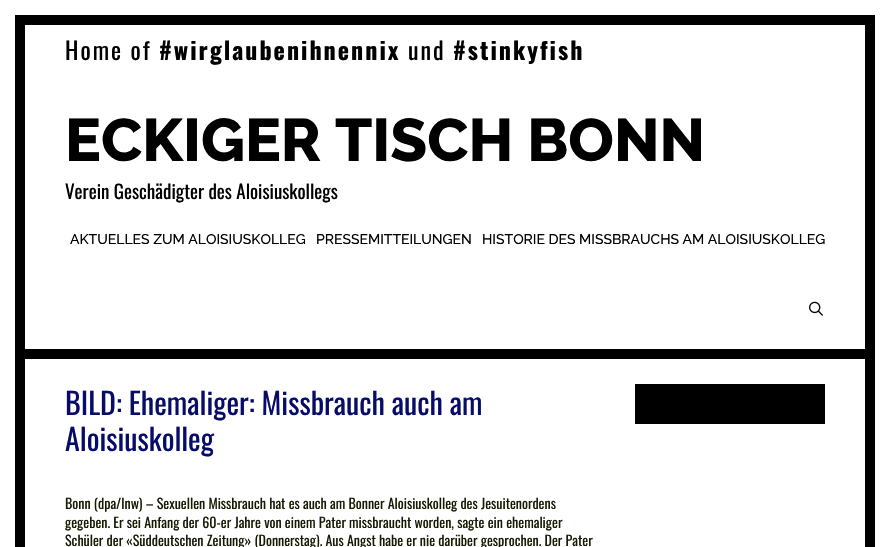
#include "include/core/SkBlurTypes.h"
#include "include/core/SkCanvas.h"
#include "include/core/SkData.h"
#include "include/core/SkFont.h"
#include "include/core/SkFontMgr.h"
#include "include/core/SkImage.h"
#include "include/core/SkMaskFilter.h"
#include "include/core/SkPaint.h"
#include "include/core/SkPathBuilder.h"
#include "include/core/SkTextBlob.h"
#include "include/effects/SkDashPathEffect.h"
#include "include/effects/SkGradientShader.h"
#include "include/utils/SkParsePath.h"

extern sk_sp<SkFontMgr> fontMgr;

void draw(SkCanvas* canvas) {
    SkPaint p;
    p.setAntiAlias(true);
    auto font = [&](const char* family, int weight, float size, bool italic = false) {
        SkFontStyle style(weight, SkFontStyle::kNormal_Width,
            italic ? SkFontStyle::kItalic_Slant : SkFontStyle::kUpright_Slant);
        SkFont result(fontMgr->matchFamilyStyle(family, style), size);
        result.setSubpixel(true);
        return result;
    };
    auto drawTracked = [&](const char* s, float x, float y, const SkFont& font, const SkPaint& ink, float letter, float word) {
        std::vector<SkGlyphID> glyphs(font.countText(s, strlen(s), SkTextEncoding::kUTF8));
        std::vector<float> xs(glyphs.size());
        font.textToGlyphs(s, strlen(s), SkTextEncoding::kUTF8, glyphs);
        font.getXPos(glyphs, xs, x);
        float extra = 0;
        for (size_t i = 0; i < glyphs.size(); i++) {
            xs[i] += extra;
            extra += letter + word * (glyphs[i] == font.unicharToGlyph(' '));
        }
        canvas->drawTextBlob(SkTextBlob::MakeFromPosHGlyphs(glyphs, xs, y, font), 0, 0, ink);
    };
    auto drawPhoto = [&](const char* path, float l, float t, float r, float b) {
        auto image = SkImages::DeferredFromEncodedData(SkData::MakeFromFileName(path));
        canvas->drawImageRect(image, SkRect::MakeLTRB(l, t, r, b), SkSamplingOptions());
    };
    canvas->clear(0xFFFFFFFF);
    p.setStyle(SkPaint::kStroke_Style);
    p.setStrokeWidth(10);
    p.setColor(0xFF000000);
    canvas->drawRect(SkRect::MakeLTRB(20, 20, 870, 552), p);
    auto font1 = font("Oswald", 400, 24);
    p.setStyle(SkPaint::kFill_Style);
    drawTracked("Home of", 65, 60, font1, p, 2, 0);
    auto font2 = font("Oswald", 700, 24);
    drawTracked("#wirglaubenihnennix", 159, 60, font2, p, 2, 0);
    drawTracked("und", 408, 60, font1, p, 2, 0);
    drawTracked("#stinkyfish", 453, 60, font2, p, 2, 0);
    canvas->drawRect(SkRect::MakeLTRB(25, 349, 865, 359), p);
    auto font3 = font("Raleway", 800, 60);
    canvas->drawString("ECKIGER TISCH BONN", 65, 161, font3, p);
    auto font4 = font("Oswald", 400, 19);
    canvas->drawString("Verein Geschädigter des Aloisiuskollegs", 65, 199, font4, p);
    auto font5 = font("Raleway", 500, 14);
    {
        const struct { const char* s; float x, y; } items[] = {
            {"AKTUELLES ZUM ALOISIUSKOLLEG", 70, 244},
            {"PRESSEMITTEILUNGEN", 316, 244},
            {"HISTORIE DES MISSBRAUCHS AM ALOISIUSKOLLEG", 482, 244},
        };
        for (auto [s, x, y] : items) {
            canvas->drawString(s, x, y, font5, p);
        }
    }
    drawPhoto("media/1.png", 809, 301, 823, 316);
    auto font6 = font("Oswald", 400, 30);
    p.setColor(0xFF070C68);
    canvas->drawString("BILD: Ehemaliger: Missbrauch auch am", 65, 415, font6, p);
    canvas->drawString("Aloisiuskolleg", 65, 451, font6, p);
    auto font7 = font("Oswald", 400, 14);
    p.setColor(0xFF161A03);
    {
        const struct { const char* s; float x, y; } items[] = {
            {"Bonn (dpa/lnw) – Sexuellen Missbrauch hat es auch am Bonner Aloisiuskolleg des Jesuitenordens", 65, 509},
            {"gegeben. Er sei Anfang der 60-er Jahre von einem Pater missbraucht worden, sagte ein ehemaliger", 65, 528},
            {"Schüler der «Süddeutschen Zeitung» (Donnerstag). Aus Angst habe er nie darüber gesprochen. Der Pater", 65, 546},
        };
        for (auto [s, x, y] : items) {
            canvas->drawString(s, x, y, font7, p);
        }
    }
    p.setColor(0xFF000000);
    canvas->drawRect(SkRect::MakeLTRB(635, 384, 825, 424), p);
}
